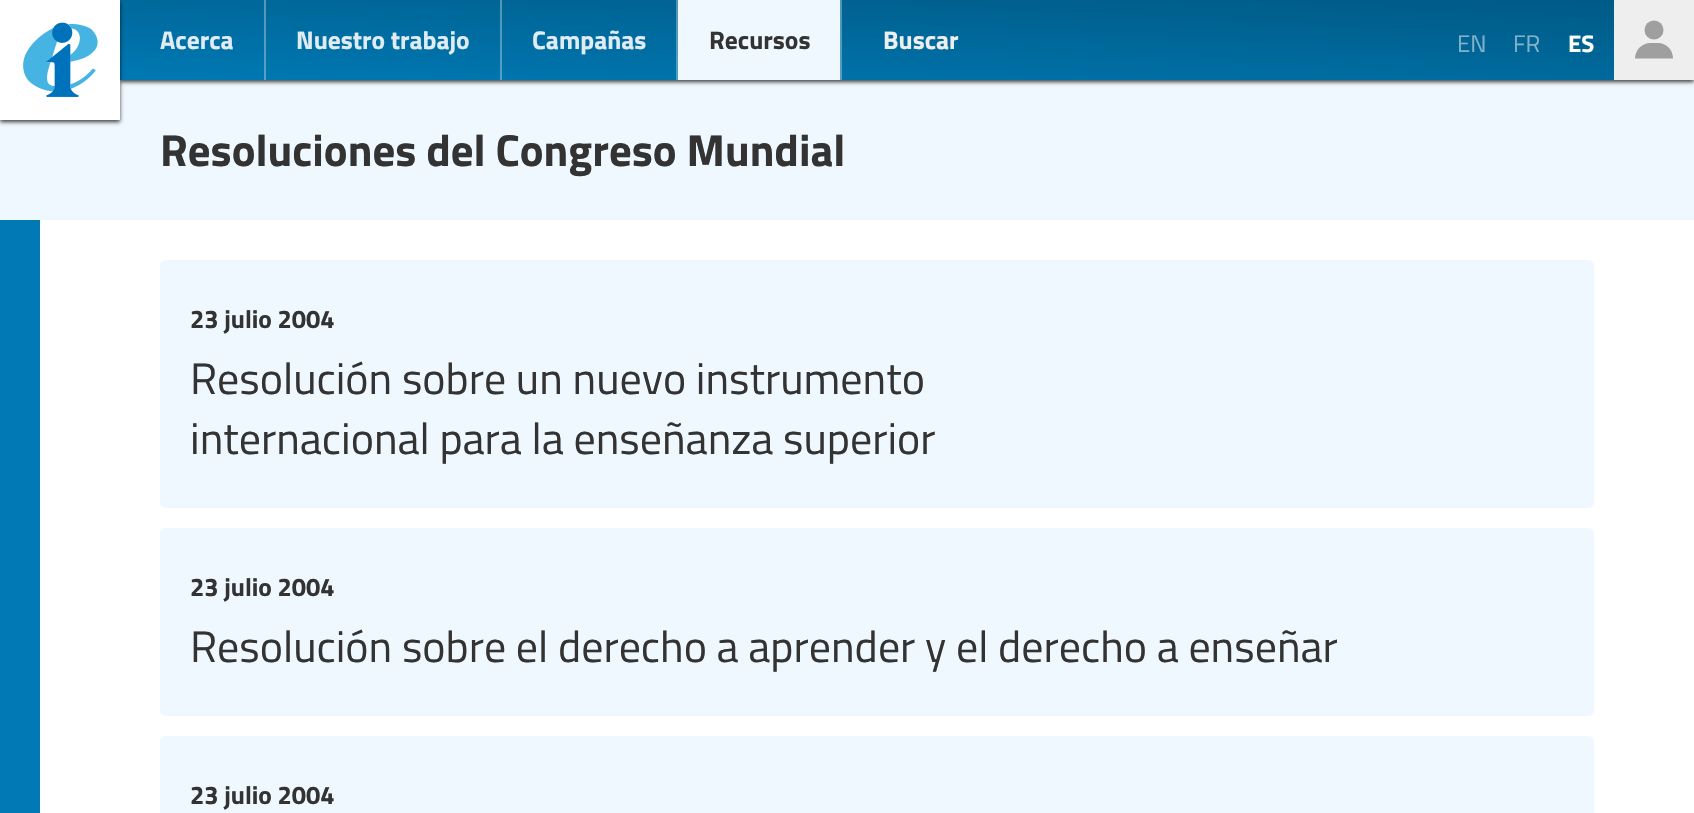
#include "include/core/SkBlurTypes.h"
#include "include/core/SkCanvas.h"
#include "include/core/SkData.h"
#include "include/core/SkFont.h"
#include "include/core/SkFontMgr.h"
#include "include/core/SkImage.h"
#include "include/core/SkMaskFilter.h"
#include "include/core/SkPaint.h"
#include "include/core/SkPathBuilder.h"
#include "include/core/SkTextBlob.h"
#include "include/effects/SkDashPathEffect.h"
#include "include/effects/SkGradientShader.h"
#include "include/utils/SkParsePath.h"

extern sk_sp<SkFontMgr> fontMgr;

void draw(SkCanvas* canvas) {
    SkPaint p;
    p.setAntiAlias(true);
    auto font = [&](const char* family, int weight, float size, bool italic = false) {
        SkFontStyle style(weight, SkFontStyle::kNormal_Width,
            italic ? SkFontStyle::kItalic_Slant : SkFontStyle::kUpright_Slant);
        SkFont result(fontMgr->matchFamilyStyle(family, style), size);
        result.setSubpixel(true);
        return result;
    };
    auto drawPhoto = [&](const char* path, float l, float t, float r, float b) {
        auto image = SkImages::DeferredFromEncodedData(SkData::MakeFromFileName(path));
        canvas->drawImageRect(image, SkRect::MakeLTRB(l, t, r, b), SkSamplingOptions());
    };
    canvas->clear(0xFFFFFFFF);
    p.setColor(0xFFF0F8FF);
    canvas->drawRect(SkRect::MakeLTRB(0, 80, 1694, 220), p);
    p.setColor(0xBF000000);
    p.setMaskFilter(SkMaskFilter::MakeBlur(kNormal_SkBlurStyle, 2));
    canvas->drawRect(SkRect::MakeLTRB(120, 2, 1694, 82), p);
    p.setMaskFilter(nullptr);
    {
        const SkColor colors[] = {0xFF0079B4, 0xFF0071A8, 0xFF00699C, 0xFF006190, 0xFF005985};
        const float stops[] = {0, 0.25f, 0.5f, 0.75f, 1};
        const SkPoint ends[] = {{903, 120}, {911, -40}};
        p.setShader(SkGradientShader::MakeLinear(ends, colors, stops, 5, SkTileMode::kClamp));
        p.setAlpha(255);
    }
    canvas->drawRect(SkRect::MakeLTRB(120, 0, 1614, 80), p);
    p.setShader(nullptr);
    p.setColor(0xBF000000);
    p.setMaskFilter(SkMaskFilter::MakeBlur(kNormal_SkBlurStyle, 2));
    canvas->drawRect(SkRect::MakeLTRB(0, 2, 120, 122), p);
    p.setMaskFilter(nullptr);
    drawPhoto("media/1.png", 0, 0, 120, 120);
    p.setColor(0x54FAFAFA);
    canvas->drawRect(SkRect::MakeLTRB(264, 0, 266, 80), p);
    auto font1 = font("Titillium Web", 700, 25.5f);
    p.setColor(0xFFE1ECF2);
    canvas->drawString("Acerca", 160, 49, font1, p);
    p.setColor(0x54FAFAFA);
    canvas->drawRect(SkRect::MakeLTRB(500, 0, 502, 80), p);
    p.setColor(0xFFE1ECF2);
    canvas->drawString("Nuestro trabajo", 296, 49, font1, p);
    p.setColor(0x54FAFAFA);
    canvas->drawRect(SkRect::MakeLTRB(676, 0, 678, 80), p);
    p.setColor(0xFFE1ECF2);
    canvas->drawString("Campañas", 532, 49, font1, p);
    p.setColor(0x54FAFAFA);
    canvas->drawRect(SkRect::MakeLTRB(840, 0, 842, 80), p);
    p.setColor(0xFFF0F8FF);
    canvas->drawRect(SkRect::MakeLTRB(678, 0, 840, 80), p);
    p.setColor(0xFF333333);
    canvas->drawString("Recursos", 709, 49, font1, p);
    p.setColor(0xFFEEEEEE);
    canvas->drawString("Buscar", 883, 49, font1, p);
    auto font2 = font("Titillium Web", 400, 24);
    p.setColor(0xFF80B2CA);
    canvas->drawString("EN", 1457, 52, font2, p);
    canvas->drawString("FR", 1513, 52, font2, p);
    auto font3 = font("Titillium Web", 700, 24);
    p.setColor(0xFFFFFFFF);
    canvas->drawString("ES", 1568, 52, font3, p);
    p.setColor(0xFFEEEEEE);
    canvas->drawRect(SkRect::MakeLTRB(1614, 0, 1694, 80), p);
    p.setColor(0xFF9F9F9F);
    canvas->drawCircle(1654, 30, 9.5f, p);
    canvas->drawPath(SkPathBuilder().moveTo(1658, 43).lineTo(1650.5f, 43).cubicTo(1642, 43, 1635, 50, 1635, 58.5f).lineTo(1673, 58.5f).cubicTo(1673, 50, 1666.5f, 43, 1658, 43).close().detach(), p);
    auto font4 = font("Titillium Web", 700, 44.75f);
    p.setColor(0xFF333333);
    canvas->drawString("Resoluciones del Congreso Mundial", 160, 166, font4, p);
    p.setColor(0xFF0079B4);
    canvas->drawRect(SkRect::MakeLTRB(0, 220, 40, 813), p);
    p.setColor(0xFFF0F8FF);
    canvas->drawRoundRect(SkRect::MakeLTRB(160, 260, 1594, 508), 6, 6, p);
    p.setColor(0xFF333333);
    canvas->drawString("23 julio 2004", 190, 328, font1, p);
    auto font5 = font("Titillium Web", 400, 44);
    canvas->drawString("Resolución sobre un nuevo instrumento", 190, 394, font5, p);
    canvas->drawString("internacional para la enseñanza superior", 190, 454, font5, p);
    p.setColor(0xFFF0F8FF);
    canvas->drawRoundRect(SkRect::MakeLTRB(160, 528, 1594, 716), 6, 6, p);
    p.setColor(0xFF333333);
    canvas->drawString("23 julio 2004", 190, 596, font1, p);
    canvas->drawString("Resolución sobre el derecho a aprender y el derecho a enseñar", 190, 662, font5, p);
    p.setColor(0xFFF0F8FF);
    canvas->drawRoundRect(SkRect::MakeLTRB(160, 736, 1594, 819), 6, 6, p);
    p.setColor(0xFF333333);
    canvas->drawString("23 julio 2004", 190, 804, font1, p);
}
